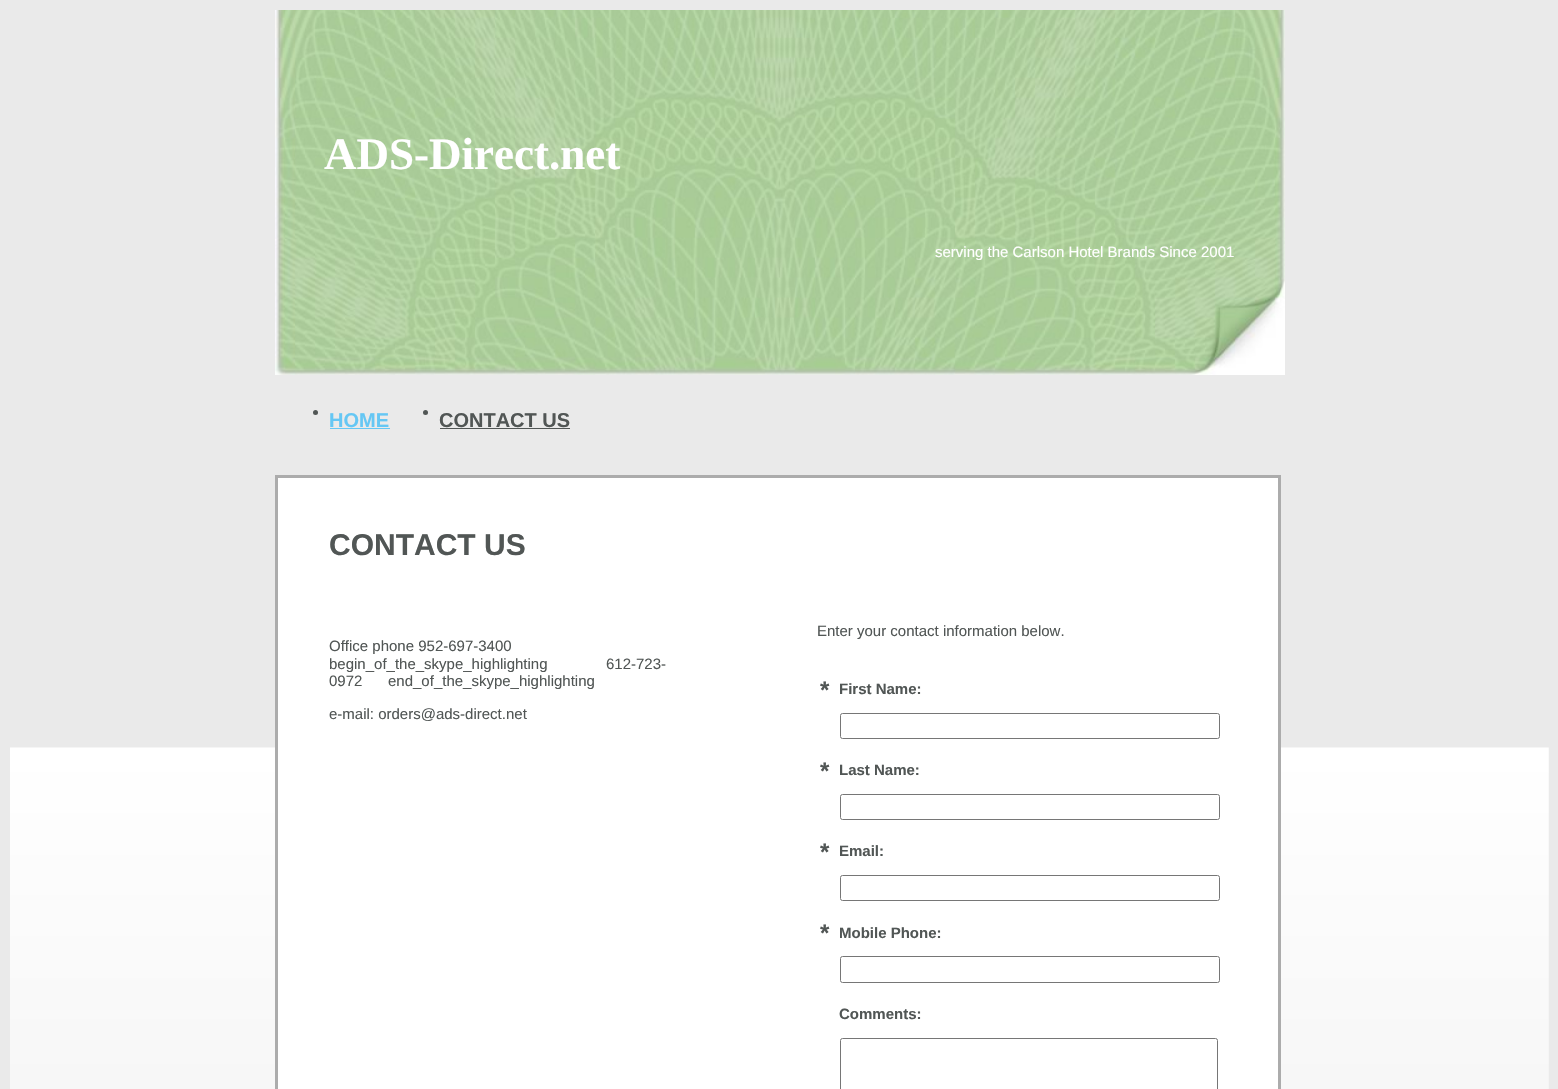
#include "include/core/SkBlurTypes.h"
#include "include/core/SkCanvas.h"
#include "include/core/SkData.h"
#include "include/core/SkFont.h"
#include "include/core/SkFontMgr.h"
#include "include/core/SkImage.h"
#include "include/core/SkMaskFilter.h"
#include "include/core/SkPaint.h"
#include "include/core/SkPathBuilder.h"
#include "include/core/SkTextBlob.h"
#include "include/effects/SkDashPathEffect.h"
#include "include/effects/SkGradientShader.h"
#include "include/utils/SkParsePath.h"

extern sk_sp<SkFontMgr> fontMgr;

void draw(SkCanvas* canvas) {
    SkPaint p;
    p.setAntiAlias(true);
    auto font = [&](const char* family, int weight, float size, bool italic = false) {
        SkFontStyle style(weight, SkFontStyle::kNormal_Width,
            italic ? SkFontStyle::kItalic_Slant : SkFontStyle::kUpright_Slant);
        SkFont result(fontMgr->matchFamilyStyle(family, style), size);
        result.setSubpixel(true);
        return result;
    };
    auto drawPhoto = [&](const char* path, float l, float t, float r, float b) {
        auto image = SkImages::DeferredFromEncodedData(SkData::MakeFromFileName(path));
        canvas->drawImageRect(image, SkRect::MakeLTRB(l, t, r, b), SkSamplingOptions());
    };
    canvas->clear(0xFFEAEAEA);
    drawPhoto("media/1.png", 10, 747, 1549, 1089);
    drawPhoto("media/2.png", 275, 10, 1285, 375);
    auto font1 = font("Liberation Serif", 700, 45);
    p.setColor(0xFFFFFFFF);
    canvas->drawString("ADS-Direct.net", 324, 169, font1, p);
    auto font2 = font("Liberation Sans", 400, 15);
    canvas->drawString("serving the Carlson Hotel Brands Since 2001", 935, 257, font2, p);
    p.setColor(0xFF515655);
    canvas->drawCircle(315.5f, 412.5f, 2.5f, p);
    auto font3 = font("Liberation Sans", 700, 20);
    p.setColor(0xFF65C7F4);
    canvas->drawString("HOME", 329, 427, font3, p);
    canvas->drawRect(SkRect::MakeLTRB(330, 428, 390, 429), p);
    p.setColor(0xFF515655);
    canvas->drawCircle(425.5f, 412.5f, 2.5f, p);
    canvas->drawString("CONTACT US", 439, 427, font3, p);
    {
        const struct { float l, t, r, b; SkColor color; } items[] = {
            {440, 428, 570, 429, 0xFF515655},
            {278, 478, 1278, 1089, 0xFFFFFFFF},
            {275, 475, 1280, 478, 0xFFACACAC},
            {1278, 475, 1281, 1089, 0xFFACACAC},
            {275, 475, 278, 1089, 0xFFACACAC},
        };
        for (auto [l, t, r, b, color] : items) {
            p.setColor(color);
            canvas->drawRect(SkRect::MakeLTRB(l, t, r, b), p);
        }
    }
    auto font4 = font("Liberation Sans", 700, 30);
    p.setColor(0xFF515655);
    canvas->drawString("CONTACT US", 329, 555, font4, p);
    {
        const struct { const char* s; float x, y; } items[] = {
            {"Office phone 952-697-3400", 329, 651},
            {"begin_of_the_skype_highlighting", 329, 669},
            {"612-723-", 606, 669},
            {"0972", 329, 686},
            {"end_of_the_skype_highlighting", 388, 686},
            {"e-mail: orders@ads-direct.net", 329, 719},
            {"Enter your contact information below.", 817, 636},
        };
        for (auto [s, x, y] : items) {
            canvas->drawString(s, x, y, font2, p);
        }
    }
    auto font5 = font("Liberation Sans", 700, 24);
    canvas->drawString("*", 820, 698, font5, p);
    auto font6 = font("Liberation Sans", 700, 15);
    canvas->drawString("First Name:", 839, 694, font6, p);
    p.setStyle(SkPaint::kStroke_Style);
    p.setStrokeWidth(1);
    p.setColor(0xFF767676);
    canvas->drawRoundRect(SkRect::MakeLTRB(840.5f, 713.5f, 1219.5f, 738.5f), 2, 2, p);
    p.setStyle(SkPaint::kFill_Style);
    p.setColor(0xFF515655);
    canvas->drawString("*", 820, 779, font5, p);
    canvas->drawString("Last Name:", 839, 775, font6, p);
    p.setStyle(SkPaint::kStroke_Style);
    p.setColor(0xFF767676);
    canvas->drawRoundRect(SkRect::MakeLTRB(840.5f, 794.5f, 1219.5f, 819.5f), 2, 2, p);
    p.setStyle(SkPaint::kFill_Style);
    p.setColor(0xFF515655);
    canvas->drawString("*", 820, 860, font5, p);
    canvas->drawString("Email:", 839, 856, font6, p);
    p.setStyle(SkPaint::kStroke_Style);
    p.setColor(0xFF767676);
    canvas->drawRoundRect(SkRect::MakeLTRB(840.5f, 875.5f, 1219.5f, 900.5f), 2, 2, p);
    p.setStyle(SkPaint::kFill_Style);
    p.setColor(0xFF515655);
    canvas->drawString("*", 820, 941, font5, p);
    canvas->drawString("Mobile Phone:", 839, 938, font6, p);
    p.setStyle(SkPaint::kStroke_Style);
    p.setColor(0xFF767676);
    canvas->drawRoundRect(SkRect::MakeLTRB(840.5f, 956.5f, 1219.5f, 982.5f), 2, 2, p);
    p.setStyle(SkPaint::kFill_Style);
    p.setColor(0xFF515655);
    canvas->drawString("Comments:", 839, 1019, font6, p);
    p.setStyle(SkPaint::kStroke_Style);
    p.setColor(0xFF767676);
    canvas->drawRoundRect(SkRect::MakeLTRB(840.5f, 1038.5f, 1217.5f, 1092.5f), 2, 2, p);
}
